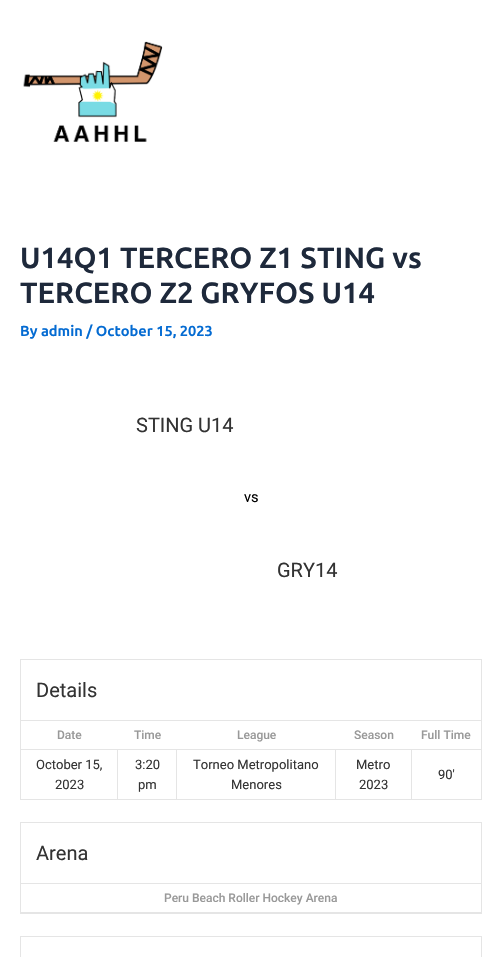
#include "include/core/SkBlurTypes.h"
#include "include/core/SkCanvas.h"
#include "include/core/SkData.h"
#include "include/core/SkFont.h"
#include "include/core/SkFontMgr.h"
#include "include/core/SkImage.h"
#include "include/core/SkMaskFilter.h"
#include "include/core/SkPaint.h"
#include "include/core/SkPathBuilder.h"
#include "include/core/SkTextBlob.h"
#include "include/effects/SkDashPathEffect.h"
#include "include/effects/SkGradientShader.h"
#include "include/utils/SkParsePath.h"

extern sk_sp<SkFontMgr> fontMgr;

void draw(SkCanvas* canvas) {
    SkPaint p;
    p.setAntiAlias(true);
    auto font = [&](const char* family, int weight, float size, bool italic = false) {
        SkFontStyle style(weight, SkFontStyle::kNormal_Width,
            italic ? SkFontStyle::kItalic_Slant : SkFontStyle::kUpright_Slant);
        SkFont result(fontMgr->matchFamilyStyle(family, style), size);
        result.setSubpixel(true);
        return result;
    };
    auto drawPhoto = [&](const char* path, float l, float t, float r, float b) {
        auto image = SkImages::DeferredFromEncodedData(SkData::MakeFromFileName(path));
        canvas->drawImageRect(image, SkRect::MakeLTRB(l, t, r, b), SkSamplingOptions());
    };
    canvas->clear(0xFFFFFFFF);
    drawPhoto("media/1.png", 23, 41, 163, 142);
    auto font1 = font("Ubuntu", 700, 29.25f);
    p.setColor(0xFF1E293B);
    canvas->drawString("U14Q1 TERCERO Z1 STING vs", 20, 268, font1, p);
    canvas->drawString("TERCERO Z2 GRYFOS U14", 20, 303, font1, p);
    auto font2 = font("Ubuntu", 700, 14.6f);
    p.setColor(0xFF046BD2);
    canvas->drawString("By admin / October 15, 2023", 20, 336, font2, p);
    auto font3 = font("Roboto", 400, 20);
    p.setColor(0xFF333333);
    canvas->drawString("STING U14", 136, 432, font3, p);
    auto font4 = font("Roboto", 400, 14.6f);
    p.setColor(0xFF000000);
    canvas->drawString("vs", 244, 502, font4, p);
    p.setColor(0xFF333333);
    canvas->drawString("GRY14", 277, 577, font3, p);
    {
        const struct { float l, t, r, b; SkColor color; } items[] = {
            {20, 659, 482, 660, 0xFFE5E5E5},
            {481, 659, 482, 720, 0xFFE5E5E5},
            {20, 659, 21, 720, 0xFFE5E5E5},
        };
        for (auto [l, t, r, b, color] : items) {
            p.setColor(color);
            canvas->drawRect(SkRect::MakeLTRB(l, t, r, b), p);
        }
    }
    p.setColor(0xFF333333);
    canvas->drawString("Details", 36, 697, font3, p);
    {
        const struct { float l, t, r, b; SkColor color; } items[] = {
            {20, 720, 482, 721, 0xFFE5E5E5},
            {481, 720, 482, 800, 0xFFE5E5E5},
            {20, 799, 482, 800, 0xFFE5E5E5},
            {20, 720, 21, 800, 0xFFE5E5E5},
        };
        for (auto [l, t, r, b, color] : items) {
            p.setColor(color);
            canvas->drawRect(SkRect::MakeLTRB(l, t, r, b), p);
        }
    }
    auto font5 = font("Roboto", 500, 12);
    p.setColor(0xFF999999);
    {
        const struct { const char* s; float x, y; } items[] = {
            {"Date", 57, 739},
            {"Time", 134, 739},
            {"League", 237, 739},
            {"Season", 354, 739},
            {"Full Time", 421, 739},
        };
        for (auto [s, x, y] : items) {
            canvas->drawString(s, x, y, font5, p);
        }
    }
    {
        const struct { float l, t, r, b; SkColor color; } items[] = {
            {411, 749, 482, 750, 0xFFE5E5E5},
            {411, 749, 412, 800, 0xFFE5E5E5},
            {335, 749, 412, 750, 0xFFE5E5E5},
            {335, 749, 336, 800, 0xFFE5E5E5},
            {176, 749, 336, 750, 0xFFE5E5E5},
            {176, 749, 177, 800, 0xFFE5E5E5},
            {117, 749, 177, 750, 0xFFE5E5E5},
            {117, 749, 118, 800, 0xFFE5E5E5},
            {20, 749, 118, 750, 0xFFE5E5E5},
        };
        for (auto [l, t, r, b, color] : items) {
            p.setColor(color);
            canvas->drawRect(SkRect::MakeLTRB(l, t, r, b), p);
        }
    }
    auto font6 = font("Roboto", 400, 13);
    p.setColor(0xFF333333);
    {
        const struct { const char* s; float x, y; } items[] = {
            {"October 15,", 36, 769},
            {"2023", 55, 789},
            {"3:20", 135, 769},
            {"pm", 138, 789},
            {"Torneo Metropolitano", 193, 769},
            {"Menores", 231, 789},
            {"Metro", 356, 769},
            {"2023", 359, 789},
            {"90'", 438, 779},
        };
        for (auto [s, x, y] : items) {
            canvas->drawString(s, x, y, font6, p);
        }
    }
    {
        const struct { float l, t, r, b; SkColor color; } items[] = {
            {20, 822, 482, 823, 0xFFE5E5E5},
            {481, 822, 482, 883, 0xFFE5E5E5},
            {20, 822, 21, 883, 0xFFE5E5E5},
        };
        for (auto [l, t, r, b, color] : items) {
            p.setColor(color);
            canvas->drawRect(SkRect::MakeLTRB(l, t, r, b), p);
        }
    }
    p.setColor(0xFF333333);
    canvas->drawString("Arena", 36, 860, font3, p);
    {
        const struct { float l, t, r, b; SkColor color; } items[] = {
            {20, 883, 482, 884, 0xFFE5E5E5},
            {481, 883, 482, 914, 0xFFE5E5E5},
            {20, 913, 482, 914, 0xFFE5E5E5},
            {20, 883, 21, 914, 0xFFE5E5E5},
        };
        for (auto [l, t, r, b, color] : items) {
            p.setColor(color);
            canvas->drawRect(SkRect::MakeLTRB(l, t, r, b), p);
        }
    }
    p.setColor(0xFF999999);
    canvas->drawString("Peru Beach Roller Hockey Arena", 164, 902, font5, p);
    {
        const struct { float l, t, r, b; SkColor color; } items[] = {
            {20, 912, 482, 913, 0xFFE5E5E5},
            {20, 936, 482, 937, 0xFFE5E5E5},
            {481, 936, 482, 957, 0xFFE5E5E5},
            {20, 936, 21, 957, 0xFFE5E5E5},
        };
        for (auto [l, t, r, b, color] : items) {
            p.setColor(color);
            canvas->drawRect(SkRect::MakeLTRB(l, t, r, b), p);
        }
    }
}
